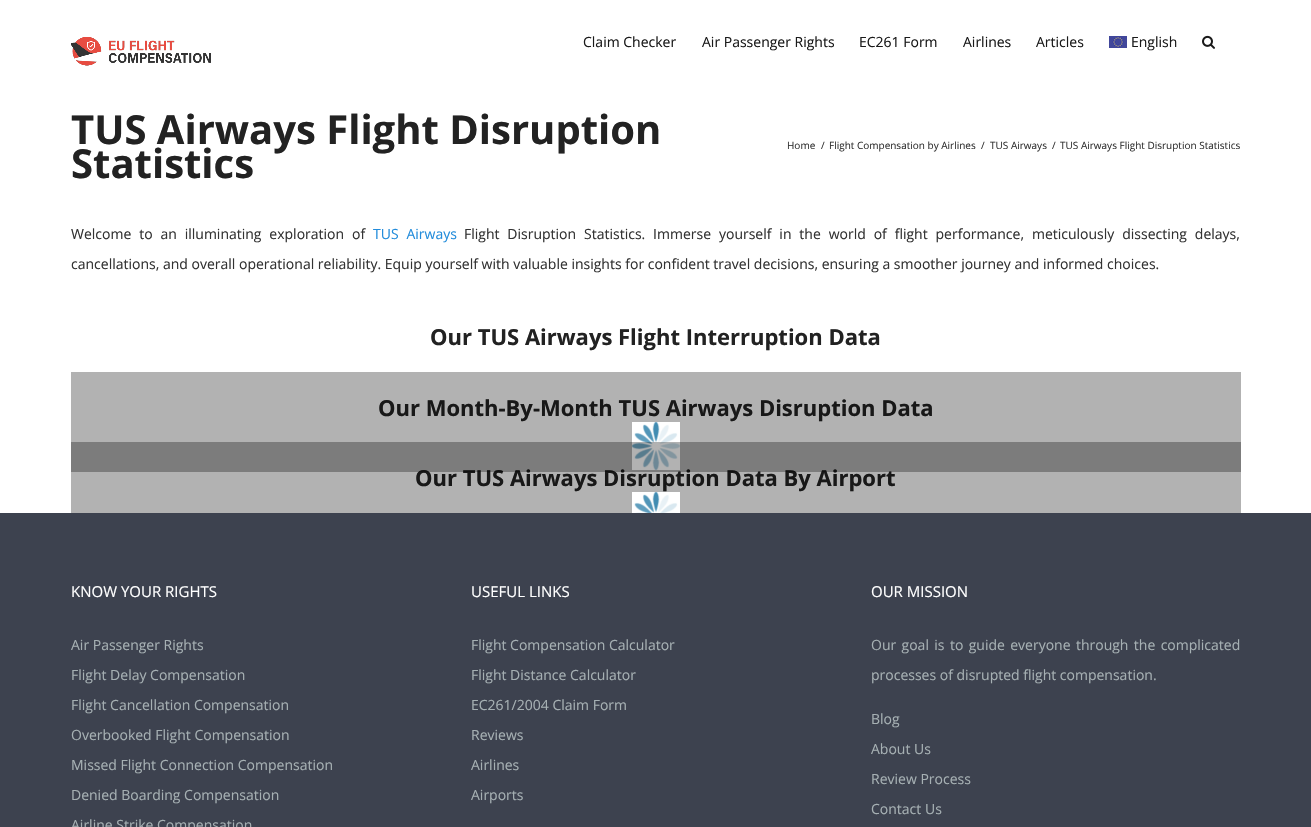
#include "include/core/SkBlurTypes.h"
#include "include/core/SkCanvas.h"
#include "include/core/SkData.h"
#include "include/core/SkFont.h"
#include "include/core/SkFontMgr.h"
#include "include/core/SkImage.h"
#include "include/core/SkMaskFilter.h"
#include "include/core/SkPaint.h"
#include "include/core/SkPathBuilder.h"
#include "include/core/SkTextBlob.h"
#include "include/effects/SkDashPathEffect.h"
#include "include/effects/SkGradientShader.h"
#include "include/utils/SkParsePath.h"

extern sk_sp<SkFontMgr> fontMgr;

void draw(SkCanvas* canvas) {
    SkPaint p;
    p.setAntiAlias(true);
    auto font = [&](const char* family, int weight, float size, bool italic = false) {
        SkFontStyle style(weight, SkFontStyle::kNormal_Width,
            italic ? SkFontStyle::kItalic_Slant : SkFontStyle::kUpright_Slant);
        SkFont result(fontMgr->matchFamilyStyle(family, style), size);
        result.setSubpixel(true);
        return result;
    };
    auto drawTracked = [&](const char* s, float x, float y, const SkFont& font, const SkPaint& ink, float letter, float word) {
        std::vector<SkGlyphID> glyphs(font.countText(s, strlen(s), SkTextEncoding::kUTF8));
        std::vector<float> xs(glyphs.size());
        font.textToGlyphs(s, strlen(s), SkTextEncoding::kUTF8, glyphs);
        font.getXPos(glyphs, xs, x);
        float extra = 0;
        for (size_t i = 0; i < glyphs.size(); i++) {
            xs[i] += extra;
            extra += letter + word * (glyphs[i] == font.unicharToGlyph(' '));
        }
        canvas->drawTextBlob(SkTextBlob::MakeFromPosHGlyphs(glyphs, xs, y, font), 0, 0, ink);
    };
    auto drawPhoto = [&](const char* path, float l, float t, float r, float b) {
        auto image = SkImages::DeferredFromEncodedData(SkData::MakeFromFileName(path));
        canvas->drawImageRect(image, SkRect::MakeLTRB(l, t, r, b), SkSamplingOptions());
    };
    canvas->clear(0xFFFFFFFF);
    drawPhoto("media/1.png", 71, 37, 211, 66);
    auto font1 = font("Open Sans", 400, 14);
    p.setColor(0xFF1A1A1A);
    {
        const struct { const char* s; float x, y; } items[] = {
            {"Claim Checker", 583, 47},
            {"Air Passenger Rights", 702, 47},
            {"EC261 Form", 859, 47},
            {"Airlines", 963, 47},
            {"Articles", 1036, 47},
        };
        for (auto [s, x, y] : items) {
            canvas->drawString(s, x, y, font1, p);
        }
    }
    drawPhoto("media/2.png", 1109, 36, 1127, 48);
    canvas->drawString("English", 1131, 47, font1, p);
    drawPhoto("media/3.png", 1202, 35, 1215, 49);
    auto font2 = font("Open Sans", 700, 40);
    p.setColor(0xFF222222);
    canvas->drawString("TUS Airways Flight Disruption", 71, 144, font2, p);
    canvas->drawString("Statistics", 71, 178, font2, p);
    auto font3 = font("Open Sans", 400, 10);
    p.setColor(0xFF333333);
    {
        const struct { const char* s; float x, y; } items[] = {
            {"Home", 787, 149},
            {"/", 821, 149},
            {"Flight Compensation by Airlines", 829, 149},
            {"/", 981, 149},
            {"TUS Airways", 990, 149},
            {"/", 1052, 149},
            {"TUS Airways Flight Disruption Statistics", 1060, 149},
        };
        for (auto [s, x, y] : items) {
            canvas->drawString(s, x, y, font3, p);
        }
    }
    drawTracked("Welcome to an illuminating exploration of", 71, 239, font1, p, 0, 4.25f);
    p.setColor(0xFF228CDB);
    drawTracked("TUS Airways", 373, 239, font1, p, 0, 4.25f);
    p.setColor(0xFF333333);
    drawTracked("Flight Disruption Statistics. Immerse yourself in the world of flight performance, meticulously dissecting delays,", 464, 239, font1, p, 0, 4.25f);
    canvas->drawString("cancellations, and overall operational reliability. Equip yourself with valuable insights for confident travel decisions, ensuring a smoother journey and informed choices.", 71, 269, font1, p);
    auto font4 = font("Open Sans", 700, 22);
    p.setColor(0xFF222222);
    {
        const struct { const char* s; float x, y; } items[] = {
            {"Our TUS Airways Flight Interruption Data", 430, 345},
            {"Our Month-By-Month TUS Airways Disruption Data", 378, 416},
            {"Our TUS Airways Disruption Data By Airport", 415, 486},
        };
        for (auto [s, x, y] : items) {
            canvas->drawString(s, x, y, font4, p);
        }
    }
    p.setColor(0x4D000000);
    canvas->drawRect(SkRect::MakeLTRB(71, 372, 1241, 472), p);
    drawPhoto("media/4.png", 632, 422, 680, 470);
    canvas->drawRect(SkRect::MakeLTRB(71, 442, 1241, 513), p);
    drawPhoto("media/5.png", 632, 492, 680, 513);
    p.setColor(0xFF3D424F);
    canvas->drawRect(SkRect::MakeLTRB(0, 513, 1311, 827), p);
    auto font5 = font("Open Sans", 400, 15);
    p.setColor(0xFFFFFFFF);
    canvas->drawString("KNOW YOUR RIGHTS", 71, 597, font5, p);
    p.setColor(0xFFA6B0B3);
    {
        const struct { const char* s; float x, y; } items[] = {
            {"Air Passenger Rights", 71, 650},
            {"Flight Delay Compensation", 71, 680},
            {"Flight Cancellation Compensation", 71, 710},
            {"Overbooked Flight Compensation", 71, 740},
            {"Missed Flight Connection Compensation", 71, 770},
            {"Denied Boarding Compensation", 71, 800},
            {"Airline Strike Compensation", 71, 830},
        };
        for (auto [s, x, y] : items) {
            canvas->drawString(s, x, y, font1, p);
        }
    }
    p.setColor(0xFFFFFFFF);
    canvas->drawString("USEFUL LINKS", 471, 597, font5, p);
    p.setColor(0xFFA6B0B3);
    {
        const struct { const char* s; float x, y; } items[] = {
            {"Flight Compensation Calculator", 471, 650},
            {"Flight Distance Calculator", 471, 680},
            {"EC261/2004 Claim Form", 471, 710},
            {"Reviews", 471, 740},
            {"Airlines", 471, 770},
            {"Airports", 471, 800},
        };
        for (auto [s, x, y] : items) {
            canvas->drawString(s, x, y, font1, p);
        }
    }
    p.setColor(0xFFFFFFFF);
    canvas->drawString("OUR MISSION", 871, 597, font5, p);
    p.setColor(0xFFA6B0B3);
    drawTracked("Our goal is to guide everyone through the complicated", 871, 650, font1, p, 0, 1.75f);
    {
        const struct { const char* s; float x, y; } items[] = {
            {"processes of disrupted flight compensation.", 871, 680},
            {"Blog", 871, 724},
            {"About Us", 871, 754},
            {"Review Process", 871, 784},
            {"Contact Us", 871, 814},
        };
        for (auto [s, x, y] : items) {
            canvas->drawString(s, x, y, font1, p);
        }
    }
}
